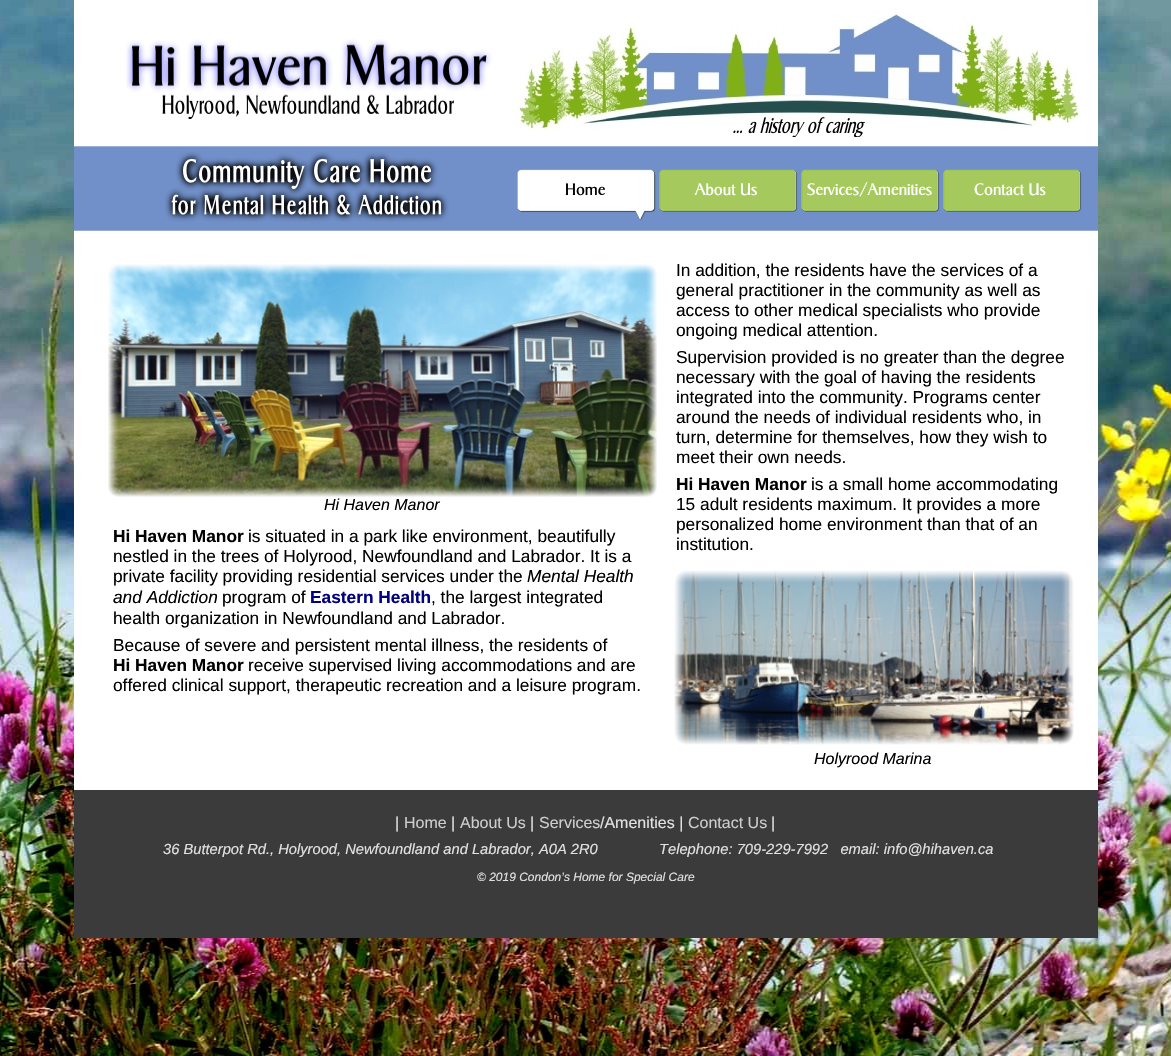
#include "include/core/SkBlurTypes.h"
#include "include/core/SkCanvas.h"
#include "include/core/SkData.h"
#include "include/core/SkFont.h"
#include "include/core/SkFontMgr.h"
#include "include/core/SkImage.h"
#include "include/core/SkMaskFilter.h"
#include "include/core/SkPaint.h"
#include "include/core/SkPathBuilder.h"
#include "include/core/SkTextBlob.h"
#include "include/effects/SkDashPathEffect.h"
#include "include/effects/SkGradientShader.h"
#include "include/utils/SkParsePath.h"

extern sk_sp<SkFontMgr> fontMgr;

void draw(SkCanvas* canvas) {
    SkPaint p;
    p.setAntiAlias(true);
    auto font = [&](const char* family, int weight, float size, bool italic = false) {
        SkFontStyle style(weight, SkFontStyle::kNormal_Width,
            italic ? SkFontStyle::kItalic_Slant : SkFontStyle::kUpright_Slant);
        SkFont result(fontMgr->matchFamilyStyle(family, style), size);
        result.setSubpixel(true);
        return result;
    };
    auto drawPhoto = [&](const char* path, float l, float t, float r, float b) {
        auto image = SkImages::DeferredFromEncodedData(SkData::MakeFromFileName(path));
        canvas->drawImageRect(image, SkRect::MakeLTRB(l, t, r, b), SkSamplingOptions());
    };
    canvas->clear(0xFFFFFFFF);
    drawPhoto("media/1.png", 0, 0, 1171, 1056);
    drawPhoto("media/2.png", 74, 0, 1098, 790);
    drawPhoto("media/3.png", 126, 39, 492, 119);
    drawPhoto("media/4.png", 516, 9, 1080, 131);
    drawPhoto("media/5.png", 733, 117, 865, 137);
    drawPhoto("media/6.png", 165, 152, 449, 222);
    drawPhoto("media/7.png", 517, 169, 656, 221);
    auto font1 = font("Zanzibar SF", 400, 16);
    p.setColor(0xFF000000);
    canvas->drawString("Home", 565, 195, font1, p);
    drawPhoto("media/8.png", 659, 169, 798, 212);
    p.setColor(0xFFFFFFFF);
    canvas->drawString("About Us", 695, 195, font1, p);
    drawPhoto("media/8.png", 801, 169, 940, 212);
    canvas->drawString("Services/Amenities", 807, 195, font1, p);
    drawPhoto("media/8.png", 943, 169, 1082, 212);
    canvas->drawString("Contact Us", 974, 195, font1, p);
    drawPhoto("media/9.png", 108, 264, 657, 497);
    auto font2 = font("Liberation Sans", 400, 17.3f);
    p.setColor(0xFF000000);
    {
        const struct { const char* s; float x, y; } items[] = {
            {"In addition, the residents have the services of a", 676, 276},
            {"general practitioner in the community as well as", 676, 296},
            {"access to other medical specialists who provide", 676, 316},
            {"ongoing medical attention.", 676, 336},
            {"Supervision provided is no greater than the degree", 676, 363},
            {"necessary with the goal of having the residents", 676, 383},
            {"integrated into the community. Programs center", 676, 403},
            {"around the needs of individual residents who, in", 676, 423},
            {"turn, determine for themselves, how they wish to", 676, 443},
            {"meet their own needs.", 676, 463},
        };
        for (auto [s, x, y] : items) {
            canvas->drawString(s, x, y, font2, p);
        }
    }
    auto font3 = font("Liberation Sans", 700, 17.3f);
    canvas->drawString("Hi Haven Manor", 676, 490, font3, p);
    {
        const struct { const char* s; float x, y; } items[] = {
            {"is a small home accommodating", 811, 490},
            {"15 adult residents maximum. It provides a more", 676, 510},
            {"personalized home environment than that of an", 676, 530},
            {"institution.", 676, 550},
        };
        for (auto [s, x, y] : items) {
            canvas->drawString(s, x, y, font2, p);
        }
    }
    auto font4 = font("Liberation Sans", 400, 16, true);
    canvas->drawString("Hi Haven Manor", 324, 510, font4, p);
    canvas->drawString("Hi Haven Manor", 113, 542, font3, p);
    {
        const struct { const char* s; float x, y; } items[] = {
            {"is situated in a park like environment, beautifully", 248, 542},
            {"nestled in the trees of Holyrood, Newfoundland and Labrador. It is a", 113, 562},
            {"private facility providing residential services under the", 113, 582},
        };
        for (auto [s, x, y] : items) {
            canvas->drawString(s, x, y, font2, p);
        }
    }
    auto font5 = font("Liberation Sans", 400, 17.3f, true);
    canvas->drawString("Mental Health", 527, 582, font5, p);
    canvas->drawString("and Addiction", 113, 603, font5, p);
    canvas->drawString("program of", 222, 603, font2, p);
    p.setColor(0xFF000080);
    canvas->drawString("Eastern Health", 310, 603, font3, p);
    p.setColor(0xFF000000);
    {
        const struct { const char* s; float x, y; } items[] = {
            {", the largest integrated", 431, 603},
            {"health organization in Newfoundland and Labrador.", 113, 624},
            {"Because of severe and persistent mental illness, the residents of", 113, 651},
        };
        for (auto [s, x, y] : items) {
            canvas->drawString(s, x, y, font2, p);
        }
    }
    canvas->drawString("Hi Haven Manor", 113, 671, font3, p);
    canvas->drawString("receive supervised living accommodations and are", 248, 671, font2, p);
    canvas->drawString("offered clinical support, therapeutic recreation and a leisure program.", 113, 691, font2, p);
    drawPhoto("media/10.png", 674, 570, 1074, 745);
    canvas->drawString("Holyrood Marina", 814, 764, font4, p);
    p.setColor(0xFF3B3B3B);
    canvas->drawRect(SkRect::MakeLTRB(74, 790, 1098, 938), p);
    auto font6 = font("Liberation Sans", 400, 16);
    p.setColor(0xFFE1E1E1);
    canvas->drawString("|", 395, 828, font6, p);
    p.setColor(0xFFCDCDCD);
    canvas->drawString("Home", 404, 828, font6, p);
    p.setColor(0xFFE1E1E1);
    canvas->drawString("|", 451, 828, font6, p);
    p.setColor(0xFFCDCDCD);
    canvas->drawString("About Us", 460, 828, font6, p);
    p.setColor(0xFFE1E1E1);
    canvas->drawString("|", 530, 828, font6, p);
    p.setColor(0xFFCDCDCD);
    canvas->drawString("Services", 539, 828, font6, p);
    p.setColor(0xFFE1E1E1);
    canvas->drawString("/Amenities |", 600, 828, font6, p);
    p.setColor(0xFFCDCDCD);
    canvas->drawString("Contact Us", 688, 828, font6, p);
    p.setColor(0xFFE1E1E1);
    canvas->drawString("|", 771, 828, font6, p);
    auto font7 = font("Liberation Sans", 400, 14.7f, true);
    canvas->drawString("36 Butterpot Rd., Holyrood, Newfoundland and Labrador, A0A 2R0", 163, 854, font7, p);
    canvas->drawString("Telephone: 709-229-7992   email: info@hihaven.ca", 659, 854, font7, p);
    auto font8 = font("Liberation Sans", 400, 12, true);
    canvas->drawString("© 2019 Condon’s Home for Special Care", 477, 881, font8, p);
}
